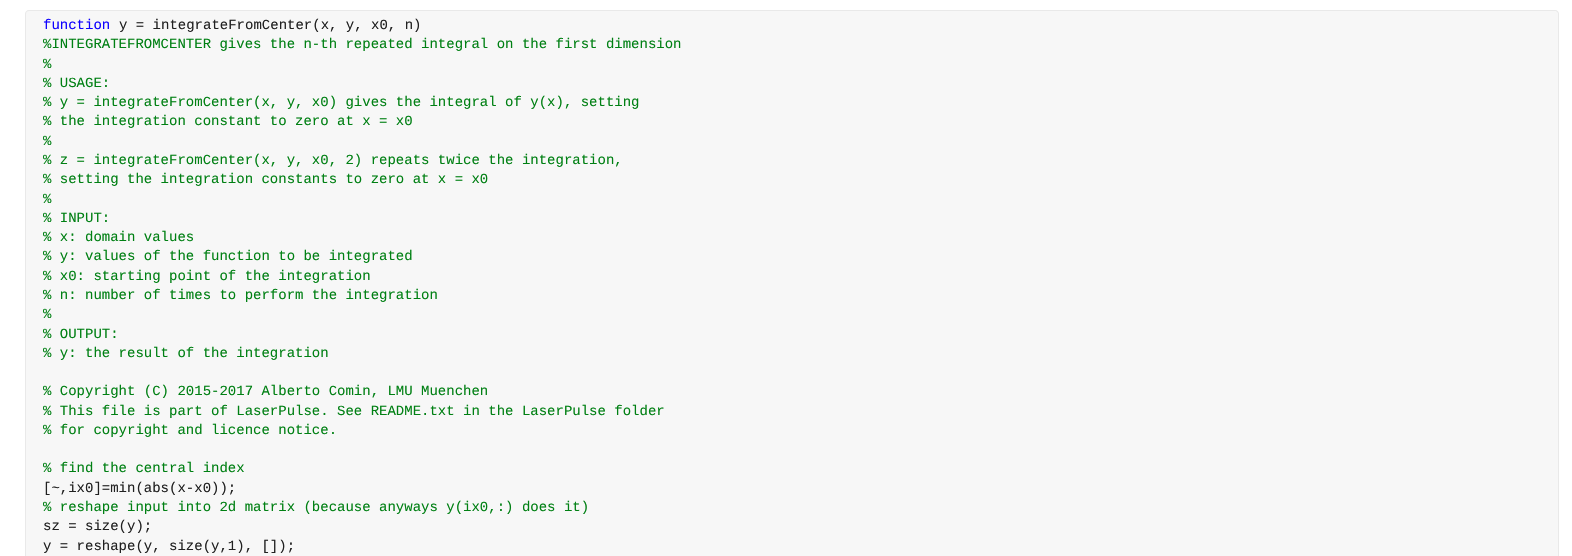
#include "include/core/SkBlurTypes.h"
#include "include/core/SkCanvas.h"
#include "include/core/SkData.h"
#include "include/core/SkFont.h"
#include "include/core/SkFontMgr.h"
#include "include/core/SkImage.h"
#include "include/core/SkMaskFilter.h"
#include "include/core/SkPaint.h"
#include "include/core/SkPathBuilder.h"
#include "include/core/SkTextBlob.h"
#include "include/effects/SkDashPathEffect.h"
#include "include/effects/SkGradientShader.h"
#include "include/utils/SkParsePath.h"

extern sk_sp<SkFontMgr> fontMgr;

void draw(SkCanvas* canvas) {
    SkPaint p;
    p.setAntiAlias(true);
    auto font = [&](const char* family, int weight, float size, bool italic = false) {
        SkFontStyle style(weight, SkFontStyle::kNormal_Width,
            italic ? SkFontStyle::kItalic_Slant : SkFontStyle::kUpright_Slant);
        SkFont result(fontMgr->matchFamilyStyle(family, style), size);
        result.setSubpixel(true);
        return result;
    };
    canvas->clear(0xFFFFFFFF);
    p.setColor(0xFFF7F7F7);
    canvas->drawPath(SkPathBuilder().moveTo(29, 10).lineTo(1555, 10).cubicTo(1557, 10, 1559, 12, 1559, 14).lineTo(1559, 556).lineTo(25, 556).lineTo(25, 14).cubicTo(25, 12, 27, 10, 29, 10).close().detach(), p);
    p.setColor(0xFFE9E9E9);
    canvas->drawPath(SkPathBuilder(SkPathFillType::kEvenOdd).moveTo(29, 10).lineTo(1555, 10).cubicTo(1557, 10, 1559, 12, 1559, 14).lineTo(1559, 35).lineTo(25, 35).lineTo(25, 14).cubicTo(25, 12, 27, 10, 29, 10).close().moveTo(29, 11).lineTo(1556, 11).lineTo(1558, 13).lineTo(1558, 35).lineTo(26, 35).lineTo(26, 14).cubicTo(26, 12, 27, 11, 29, 11).close().detach(), p);
    auto font1 = font("Liberation Mono", 400, 14);
    p.setColor(0xFF0E00FF);
    canvas->drawString("function", 43, 29, font1, p);
    p.setColor(0xFF212121);
    canvas->drawString("y = integrateFromCenter(x, y, x0, n)", 119, 29, font1, p);
    p.setColor(0xFFE9E9E9);
    canvas->drawRect(SkRect::MakeLTRB(1558, 35, 1559, 556), p);
    canvas->drawRect(SkRect::MakeLTRB(25, 35, 26, 556), p);
    p.setColor(0xFF008013);
    {
        const struct { const char* s; float x, y; } items[] = {
            {"%INTEGRATEFROMCENTER gives the n-th repeated integral on the first dimension", 43, 48},
            {"%", 43, 68},
            {"% USAGE:", 43, 87},
            {"% y = integrateFromCenter(x, y, x0) gives the integral of y(x), setting", 43, 106},
            {"% the integration constant to zero at x = x0", 43, 125},
            {"%", 43, 145},
            {"% z = integrateFromCenter(x, y, x0, 2) repeats twice the integration,", 43, 164},
            {"% setting the integration constants to zero at x = x0", 43, 183},
            {"%", 43, 203},
            {"% INPUT:", 43, 222},
            {"% x: domain values", 43, 241},
            {"% y: values of the function to be integrated", 43, 260},
            {"% x0: starting point of the integration", 43, 280},
            {"% n: number of times to perform the integration", 43, 299},
            {"%", 43, 318},
            {"% OUTPUT:", 43, 338},
            {"% y: the result of the integration", 43, 357},
            {"% Copyright (C) 2015-2017 Alberto Comin, LMU Muenchen", 43, 395},
            {"% This file is part of LaserPulse. See README.txt in the LaserPulse folder", 43, 415},
            {"% for copyright and licence notice.", 43, 434},
            {"% find the central index", 43, 472},
        };
        for (auto [s, x, y] : items) {
            canvas->drawString(s, x, y, font1, p);
        }
    }
    p.setColor(0xFF212121);
    canvas->drawString("[~,ix0]=min(abs(x-x0));", 43, 492, font1, p);
    p.setColor(0xFF008013);
    canvas->drawString("% reshape input into 2d matrix (because anyways y(ix0,:) does it)", 43, 511, font1, p);
    p.setColor(0xFF212121);
    canvas->drawString("sz = size(y);", 43, 530, font1, p);
    canvas->drawString("y = reshape(y, size(y,1), []);", 43, 550, font1, p);
}
